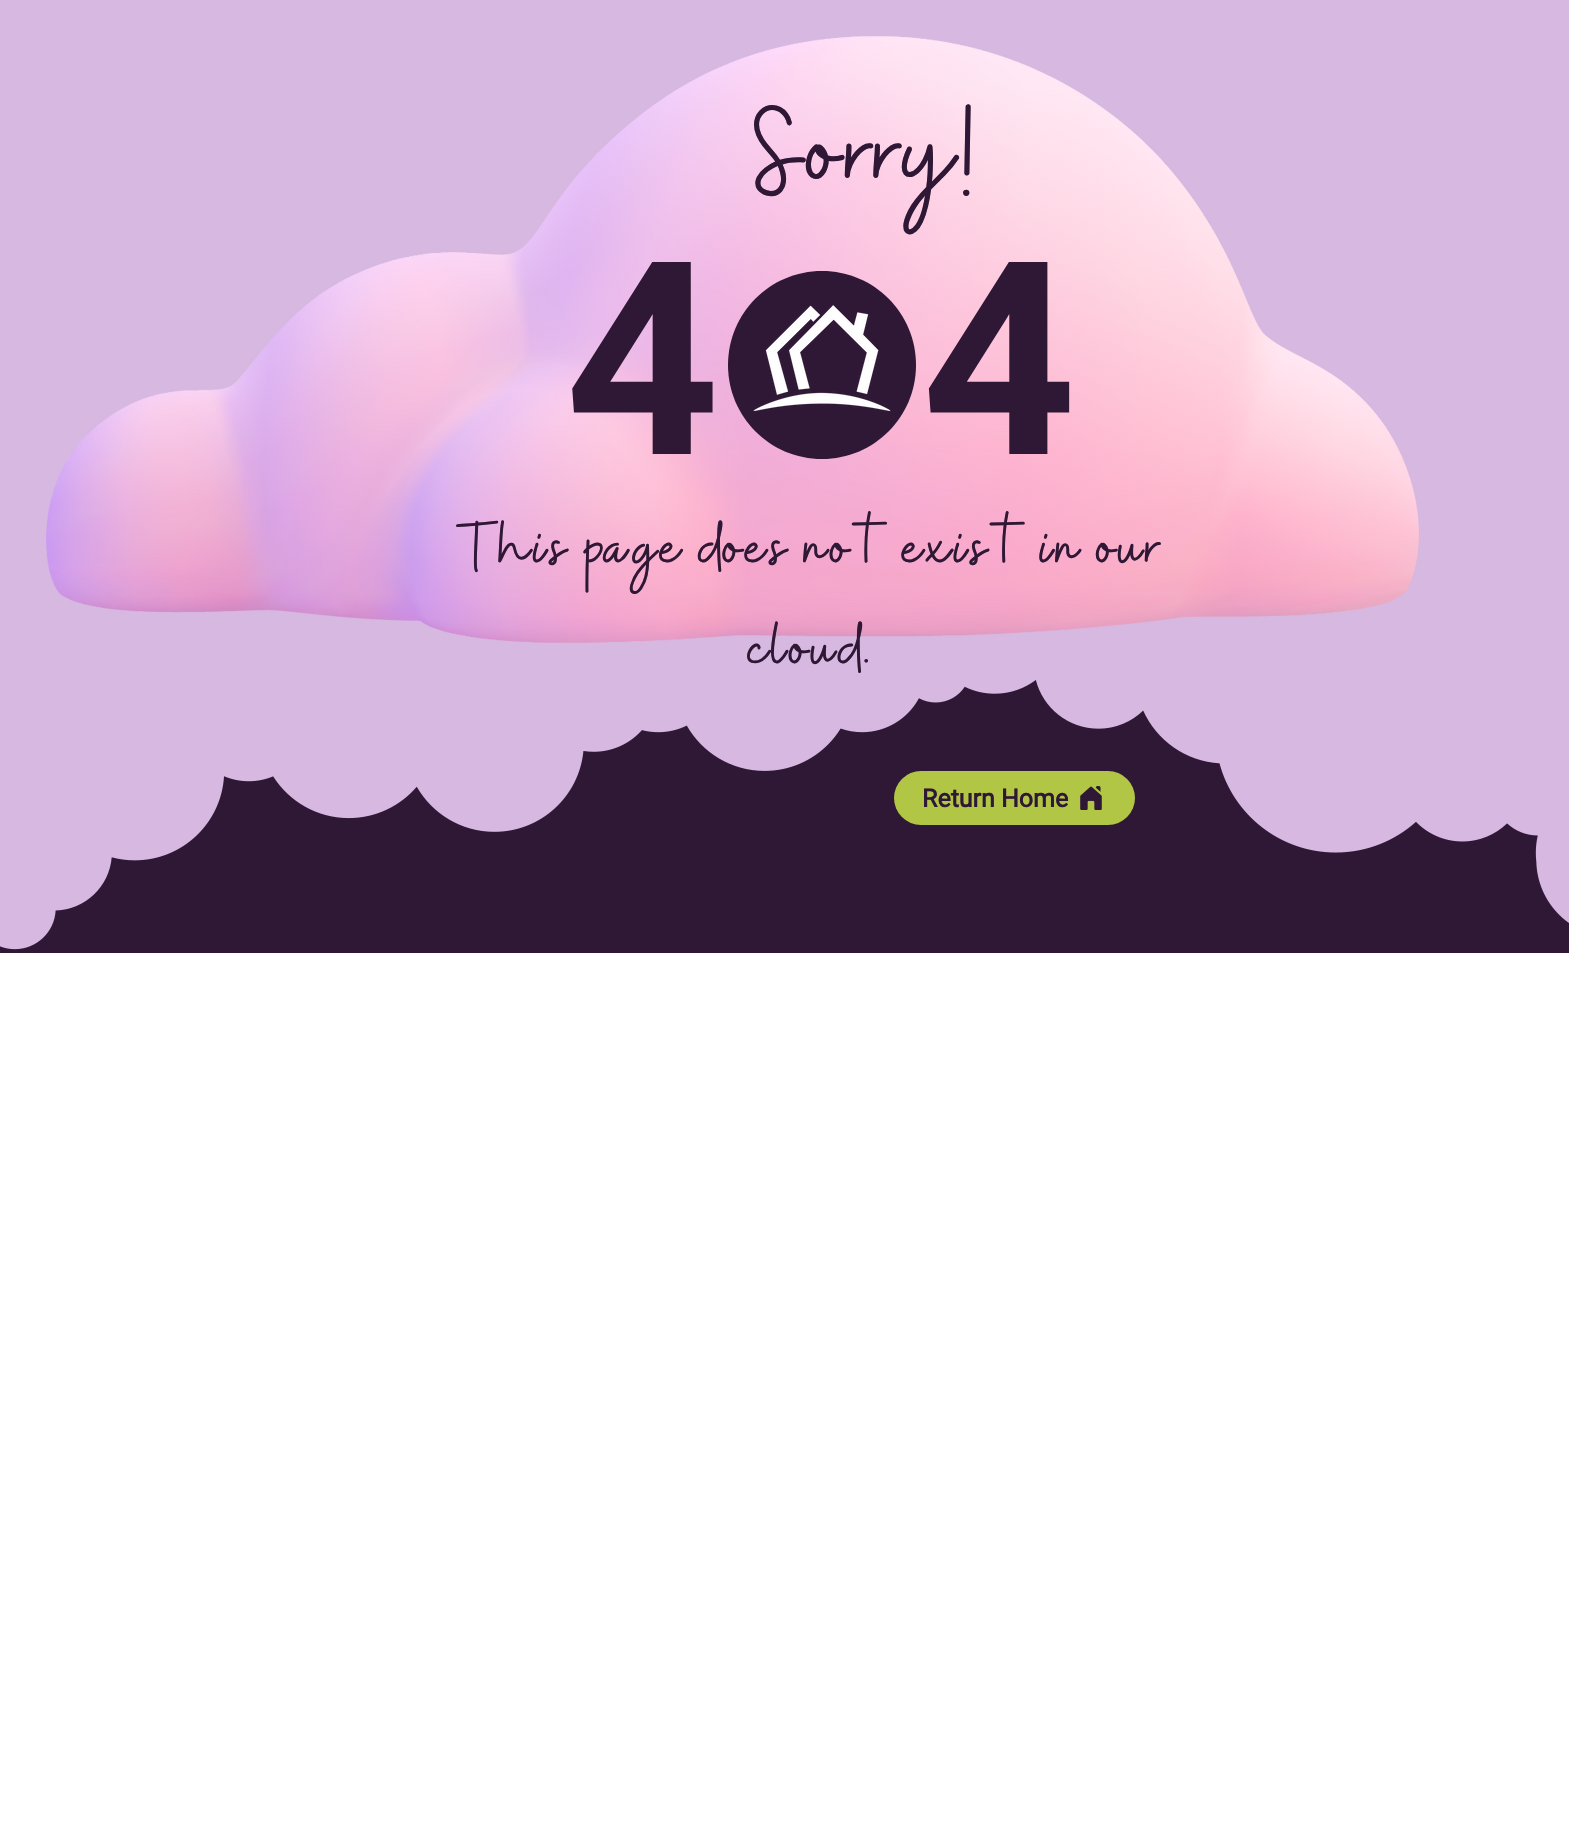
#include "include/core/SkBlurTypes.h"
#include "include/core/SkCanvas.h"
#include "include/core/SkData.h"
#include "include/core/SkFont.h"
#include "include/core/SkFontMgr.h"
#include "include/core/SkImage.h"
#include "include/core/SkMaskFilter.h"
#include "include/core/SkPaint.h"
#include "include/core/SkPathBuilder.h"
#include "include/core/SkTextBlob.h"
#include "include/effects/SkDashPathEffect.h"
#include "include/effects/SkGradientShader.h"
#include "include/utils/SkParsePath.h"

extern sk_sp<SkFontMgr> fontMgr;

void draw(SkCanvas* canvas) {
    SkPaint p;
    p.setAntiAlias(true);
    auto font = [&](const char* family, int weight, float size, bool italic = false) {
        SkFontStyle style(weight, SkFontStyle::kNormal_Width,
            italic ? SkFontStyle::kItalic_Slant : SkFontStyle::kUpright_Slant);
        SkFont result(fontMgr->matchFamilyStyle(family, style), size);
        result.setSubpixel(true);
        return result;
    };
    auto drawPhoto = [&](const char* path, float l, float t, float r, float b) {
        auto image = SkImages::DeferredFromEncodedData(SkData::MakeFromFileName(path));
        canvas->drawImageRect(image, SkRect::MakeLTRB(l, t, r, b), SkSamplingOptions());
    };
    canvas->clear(0xFFFFFFFF);
    p.setColor(0xFFD7B8E0);
    canvas->drawRect(SkRect::MakeLTRB(0, 0, 1569, 950), p);
    drawPhoto("media/1.png", 46, 36, 1419, 643);
    auto font1 = font("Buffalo", 400, 127);
    p.setColor(0xFF2F1835);
    canvas->drawString("Sorry!", 754, 196, font1, p);
    auto font2 = font("Roboto", 700, 270);
    canvas->drawString("4   4", 565, 454, font2, p);
    canvas->drawPath(SkPathBuilder().moveTo(916, 365).cubicTo(916, 417, 874, 459, 822, 459).cubicTo(770, 459, 728, 417, 728, 365).cubicTo(728, 313, 770, 271, 822, 271).cubicTo(874, 271, 916, 313, 916, 365).close().detach(), p);
    drawPhoto("media/2.png", 753, 305, 891, 412);
    auto font3 = font("Buffalo", 400, 72);
    canvas->drawString("This page does not exist in our", 456, 572, font3, p);
    canvas->drawString("cloud.", 747, 673, font3, p);
    drawPhoto("media/4.png", 0, 680, 1569, 953);
    p.setColor(0xFFB2C645);
    canvas->drawRoundRect(SkRect::MakeLTRB(894, 771, 1135, 825), 27, 27, p);
    auto font4 = font("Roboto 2", 700, 25);
    p.setColor(0xFF2F1835);
    canvas->drawString("Return Home", 922, 807, font4, p);
    drawPhoto("media/3.png", 1080, 786, 1102, 810);
}
